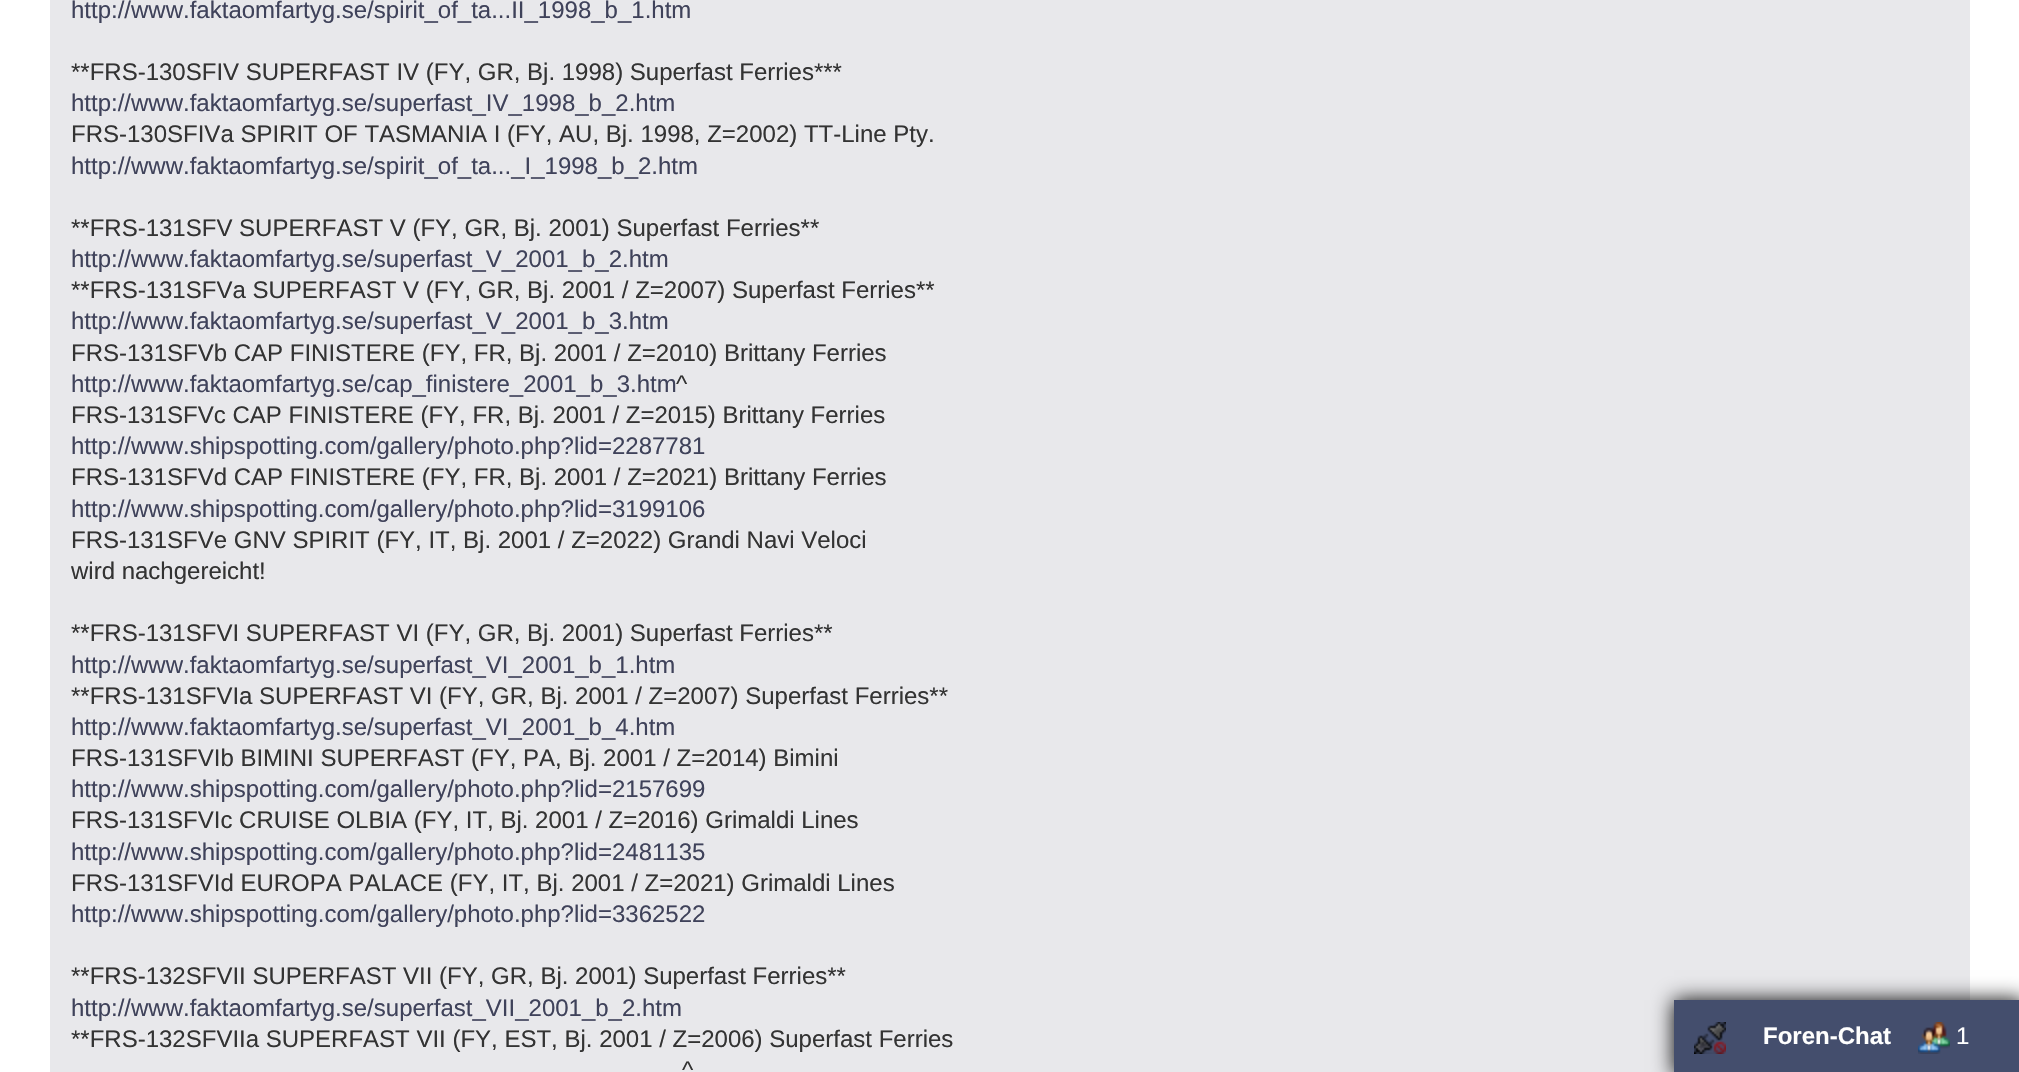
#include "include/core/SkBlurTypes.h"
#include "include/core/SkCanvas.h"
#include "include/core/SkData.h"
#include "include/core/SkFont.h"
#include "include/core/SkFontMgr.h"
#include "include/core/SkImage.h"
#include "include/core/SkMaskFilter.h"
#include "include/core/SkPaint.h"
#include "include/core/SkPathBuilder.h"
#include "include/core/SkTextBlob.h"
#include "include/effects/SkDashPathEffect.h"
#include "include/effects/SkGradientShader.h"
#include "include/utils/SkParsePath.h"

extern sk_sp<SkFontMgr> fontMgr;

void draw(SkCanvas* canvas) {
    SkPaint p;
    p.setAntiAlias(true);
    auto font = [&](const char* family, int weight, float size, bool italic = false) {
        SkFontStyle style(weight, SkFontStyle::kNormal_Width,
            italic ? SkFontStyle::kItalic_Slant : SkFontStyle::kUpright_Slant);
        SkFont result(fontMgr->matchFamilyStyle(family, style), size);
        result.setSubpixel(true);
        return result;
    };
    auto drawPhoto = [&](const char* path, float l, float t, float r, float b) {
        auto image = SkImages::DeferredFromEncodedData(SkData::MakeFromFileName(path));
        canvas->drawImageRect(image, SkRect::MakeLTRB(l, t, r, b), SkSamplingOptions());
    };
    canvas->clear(0xFFFFFFFF);
    p.setColor(0xFFE8E8EB);
    canvas->drawRect(SkRect::MakeLTRB(50, 0, 1970, 1072), p);
    auto font1 = font("Liberation Sans", 400, 24);
    p.setColor(0xFF3F425A);
    canvas->drawString("http://www.faktaomfartyg.se/spirit_of_ta...II_1998_b_1.htm", 71, 18, font1, p);
    p.setColor(0xFF333333);
    canvas->drawString("**FRS-130SFIV SUPERFAST IV (FY, GR, Bj. 1998) Superfast Ferries***", 71, 80, font1, p);
    p.setColor(0xFF3F425A);
    canvas->drawString("http://www.faktaomfartyg.se/superfast_IV_1998_b_2.htm", 71, 111, font1, p);
    p.setColor(0xFF333333);
    canvas->drawString("FRS-130SFIVa SPIRIT OF TASMANIA I (FY, AU, Bj. 1998, Z=2002) TT-Line Pty.", 71, 142, font1, p);
    p.setColor(0xFF3F425A);
    canvas->drawString("http://www.faktaomfartyg.se/spirit_of_ta..._I_1998_b_2.htm", 71, 174, font1, p);
    p.setColor(0xFF333333);
    canvas->drawString("**FRS-131SFV SUPERFAST V (FY, GR, Bj. 2001) Superfast Ferries**", 71, 236, font1, p);
    p.setColor(0xFF3F425A);
    canvas->drawString("http://www.faktaomfartyg.se/superfast_V_2001_b_2.htm", 71, 267, font1, p);
    p.setColor(0xFF333333);
    canvas->drawString("**FRS-131SFVa SUPERFAST V (FY, GR, Bj. 2001 / Z=2007) Superfast Ferries**", 71, 298, font1, p);
    p.setColor(0xFF3F425A);
    canvas->drawString("http://www.faktaomfartyg.se/superfast_V_2001_b_3.htm", 71, 329, font1, p);
    p.setColor(0xFF333333);
    canvas->drawString("FRS-131SFVb CAP FINISTERE (FY, FR, Bj. 2001 / Z=2010) Brittany Ferries", 71, 361, font1, p);
    p.setColor(0xFF3F425A);
    canvas->drawString("http://www.faktaomfartyg.se/cap_finistere_2001_b_3.htm", 71, 392, font1, p);
    p.setColor(0xFF333333);
    canvas->drawString("^", 676, 392, font1, p);
    canvas->drawString("FRS-131SFVc CAP FINISTERE (FY, FR, Bj. 2001 / Z=2015) Brittany Ferries", 71, 423, font1, p);
    p.setColor(0xFF3F425A);
    canvas->drawString("http://www.shipspotting.com/gallery/photo.php?lid=2287781", 71, 454, font1, p);
    p.setColor(0xFF333333);
    canvas->drawString("FRS-131SFVd CAP FINISTERE (FY, FR, Bj. 2001 / Z=2021) Brittany Ferries", 71, 485, font1, p);
    p.setColor(0xFF3F425A);
    canvas->drawString("http://www.shipspotting.com/gallery/photo.php?lid=3199106", 71, 517, font1, p);
    p.setColor(0xFF333333);
    {
        const struct { const char* s; float x, y; } items[] = {
            {"FRS-131SFVe GNV SPIRIT (FY, IT, Bj. 2001 / Z=2022) Grandi Navi Veloci", 71, 548},
            {"wird nachgereicht!", 71, 579},
            {"**FRS-131SFVI SUPERFAST VI (FY, GR, Bj. 2001) Superfast Ferries**", 71, 641},
        };
        for (auto [s, x, y] : items) {
            canvas->drawString(s, x, y, font1, p);
        }
    }
    p.setColor(0xFF3F425A);
    canvas->drawString("http://www.faktaomfartyg.se/superfast_VI_2001_b_1.htm", 71, 673, font1, p);
    p.setColor(0xFF333333);
    canvas->drawString("**FRS-131SFVIa SUPERFAST VI (FY, GR, Bj. 2001 / Z=2007) Superfast Ferries**", 71, 704, font1, p);
    p.setColor(0xFF3F425A);
    canvas->drawString("http://www.faktaomfartyg.se/superfast_VI_2001_b_4.htm", 71, 735, font1, p);
    p.setColor(0xFF333333);
    canvas->drawString("FRS-131SFVIb BIMINI SUPERFAST (FY, PA, Bj. 2001 / Z=2014) Bimini", 71, 766, font1, p);
    p.setColor(0xFF3F425A);
    canvas->drawString("http://www.shipspotting.com/gallery/photo.php?lid=2157699", 71, 797, font1, p);
    p.setColor(0xFF333333);
    canvas->drawString("FRS-131SFVIc CRUISE OLBIA (FY, IT, Bj. 2001 / Z=2016) Grimaldi Lines", 71, 828, font1, p);
    p.setColor(0xFF3F425A);
    canvas->drawString("http://www.shipspotting.com/gallery/photo.php?lid=2481135", 71, 860, font1, p);
    p.setColor(0xFF333333);
    canvas->drawString("FRS-131SFVId EUROPA PALACE (FY, IT, Bj. 2001 / Z=2021) Grimaldi Lines", 71, 891, font1, p);
    p.setColor(0xFF3F425A);
    canvas->drawString("http://www.shipspotting.com/gallery/photo.php?lid=3362522", 71, 922, font1, p);
    p.setColor(0xFF333333);
    canvas->drawString("**FRS-132SFVII SUPERFAST VII (FY, GR, Bj. 2001) Superfast Ferries**", 71, 984, font1, p);
    p.setColor(0xFF3F425A);
    canvas->drawString("http://www.faktaomfartyg.se/superfast_VII_2001_b_2.htm", 71, 1016, font1, p);
    p.setColor(0xFF333333);
    canvas->drawString("**FRS-132SFVIIa SUPERFAST VII (FY, EST, Bj. 2001 / Z=2006) Superfast Ferries", 71, 1047, font1, p);
    canvas->drawString("^", 682, 1078, font1, p);
    p.setColor(0xFF040404);
    p.setMaskFilter(SkMaskFilter::MakeBlur(kNormal_SkBlurStyle, 10));
    canvas->drawRect(SkRect::MakeLTRB(1674, 1000, 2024, 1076), p);
    p.setMaskFilter(nullptr);
    p.setColor(0xFF444E6D);
    canvas->drawRect(SkRect::MakeLTRB(1674, 1000, 2019, 1072), p);
    drawPhoto("media/1.png", 1694, 1022, 1726, 1054);
    auto font2 = font("Liberation Sans", 700, 24);
    p.setColor(0xFFFFFFFF);
    canvas->drawString("Foren-Chat", 1763, 1044, font2, p);
    drawPhoto("media/2.png", 1918, 1022, 1950, 1054);
    canvas->drawString("1", 1956, 1044, font1, p);
}
